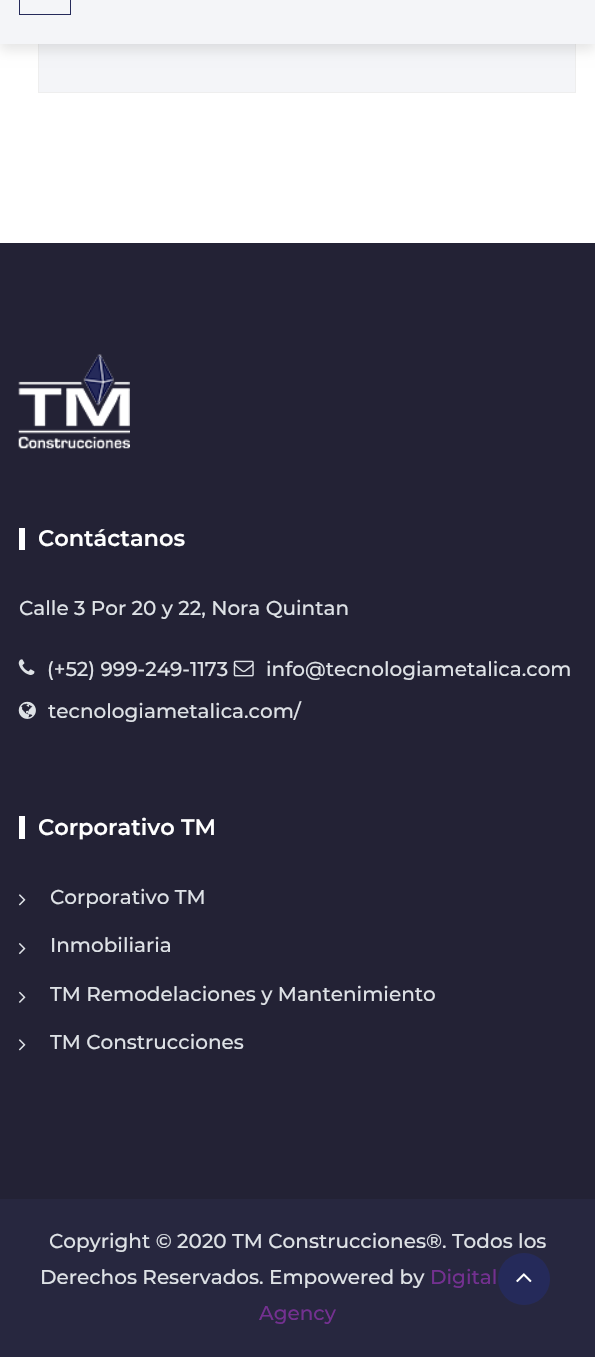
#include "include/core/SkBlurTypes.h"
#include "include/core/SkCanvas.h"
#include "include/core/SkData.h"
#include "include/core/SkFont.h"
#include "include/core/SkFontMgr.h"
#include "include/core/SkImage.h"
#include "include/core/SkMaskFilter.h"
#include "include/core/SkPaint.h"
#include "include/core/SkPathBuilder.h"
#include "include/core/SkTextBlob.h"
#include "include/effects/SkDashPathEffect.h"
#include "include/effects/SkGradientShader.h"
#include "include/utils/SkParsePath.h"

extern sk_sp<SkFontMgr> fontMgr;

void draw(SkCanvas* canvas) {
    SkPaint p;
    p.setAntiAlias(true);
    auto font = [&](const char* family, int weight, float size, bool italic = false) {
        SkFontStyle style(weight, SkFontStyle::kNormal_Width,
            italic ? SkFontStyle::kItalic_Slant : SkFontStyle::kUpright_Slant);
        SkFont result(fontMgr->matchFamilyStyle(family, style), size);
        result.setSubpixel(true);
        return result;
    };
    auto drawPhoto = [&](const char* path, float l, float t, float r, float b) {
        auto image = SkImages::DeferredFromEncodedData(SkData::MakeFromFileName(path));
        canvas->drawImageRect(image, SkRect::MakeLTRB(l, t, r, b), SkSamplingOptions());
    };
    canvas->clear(0xFFFFFFFF);
    p.setColor(0xFFF4F5F8);
    canvas->drawRect(SkRect::MakeLTRB(39, 44, 575, 92), p);
    p.setStyle(SkPaint::kStroke_Style);
    p.setStrokeWidth(1);
    p.setColor(0xFFEEEEEE);
    canvas->drawRect(SkRect::MakeLTRB(38.5f, -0.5f, 575.5f, 92.5f), p);
    p.setStyle(SkPaint::kFill_Style);
    p.setColor(0x1A000000);
    p.setMaskFilter(SkMaskFilter::MakeBlur(kNormal_SkBlurStyle, 6));
    canvas->drawRect(SkRect::MakeLTRB(0, 6, 595, 50), p);
    p.setMaskFilter(nullptr);
    p.setColor(0xFFF4F5F8);
    canvas->drawRect(SkRect::MakeLTRB(0, 0, 595, 44), p);
    p.setStyle(SkPaint::kStroke_Style);
    p.setColor(0xFF252A5A);
    canvas->drawRect(SkRect::MakeLTRB(19.5f, -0.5f, 70.5f, 14.5f), p);
    p.setStyle(SkPaint::kFill_Style);
    p.setColor(0xFF232235);
    canvas->drawRect(SkRect::MakeLTRB(0, 243, 595, 1199), p);
    drawPhoto("media/1.png", 18, 354, 130, 449);
    p.setColor(0xFFFFFFFF);
    canvas->drawRect(SkRect::MakeLTRB(19, 528, 25, 550), p);
    auto font1 = font("Montserrat", 600, 22.5f);
    canvas->drawString("Contáctanos", 38, 546, font1, p);
    auto font2 = font("Montserrat", 500, 20);
    p.setColor(0xFFDEE2E6);
    canvas->drawString("Calle 3 Por 20 y 22, Nora Quintan", 19, 615, font2, p);
    drawPhoto("media/2.png", 18, 659, 35, 675);
    canvas->drawString("(+52) 999-249-1173", 47, 676, font2, p);
    drawPhoto("media/3.png", 233, 660, 254, 677);
    canvas->drawString("info@tecnologiametalica.com", 266, 676, font2, p);
    drawPhoto("media/4.png", 18, 701, 36, 719);
    canvas->drawString("tecnologiametalica.com/", 48, 718, font2, p);
    p.setColor(0xFFFFFFFF);
    canvas->drawRect(SkRect::MakeLTRB(19, 816, 25, 839), p);
    canvas->drawString("Corporativo TM", 38, 835, font1, p);
    drawPhoto("media/5.png", 18, 894, 26, 906);
    p.setColor(0xFFDEE2E6);
    canvas->drawString("Corporativo TM", 50, 904, font2, p);
    drawPhoto("media/6.png", 18, 943, 26, 955);
    canvas->drawString("Inmobiliaria", 50, 952, font2, p);
    drawPhoto("media/7.png", 18, 991, 26, 1003);
    canvas->drawString("TM Remodelaciones y Mantenimiento", 50, 1001, font2, p);
    drawPhoto("media/5.png", 18, 1039, 26, 1051);
    canvas->drawString("TM Construcciones", 50, 1049, font2, p);
    p.setColor(0xFF27273F);
    canvas->drawRect(SkRect::MakeLTRB(0, 1199, 595, 1357), p);
    p.setColor(0xFFDEE2E6);
    canvas->drawString("Copyright © 2020 TM Construcciones®. Todos los", 49, 1248, font2, p);
    canvas->drawString("Derechos Reservados. Empowered by", 40, 1284, font2, p);
    p.setColor(0xFF733090);
    canvas->drawString("Digital", 430, 1284, font2, p);
    canvas->drawString("Agency", 259, 1320, font2, p);
    p.setColor(0xFF252A5A);
    canvas->drawCircle(524, 1279, 26, p);
    drawPhoto("media/8.png", 516, 1273, 532, 1283);
}
